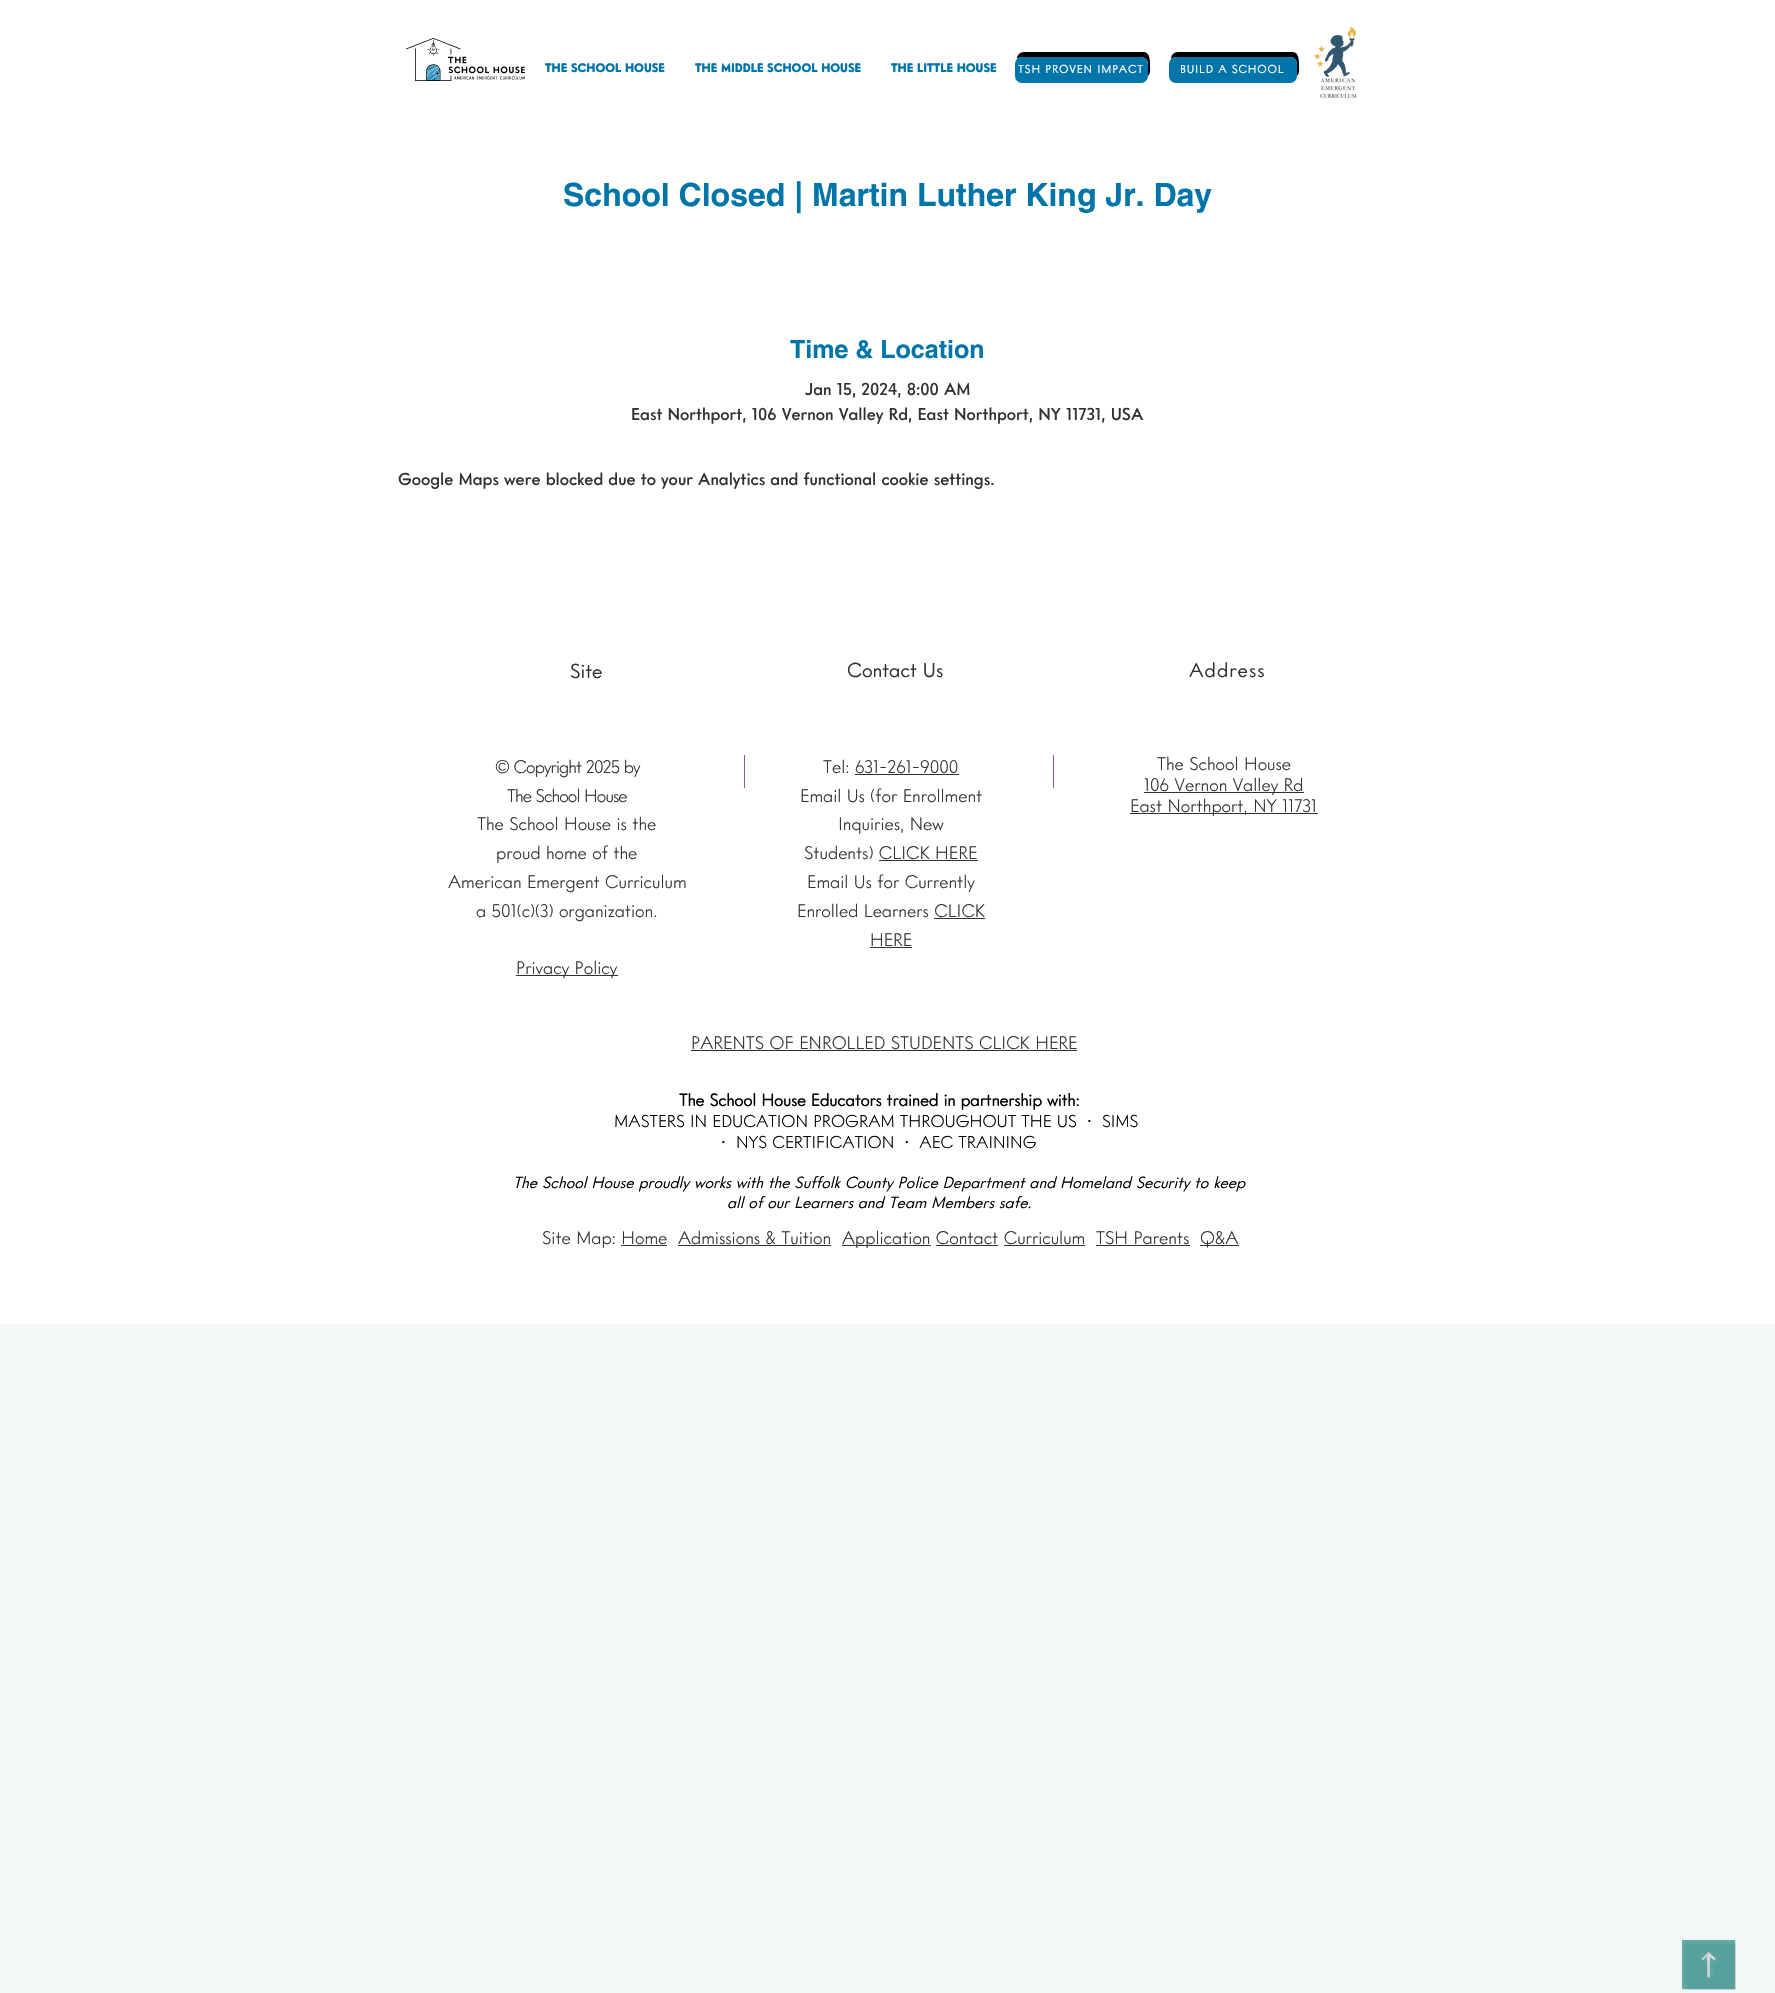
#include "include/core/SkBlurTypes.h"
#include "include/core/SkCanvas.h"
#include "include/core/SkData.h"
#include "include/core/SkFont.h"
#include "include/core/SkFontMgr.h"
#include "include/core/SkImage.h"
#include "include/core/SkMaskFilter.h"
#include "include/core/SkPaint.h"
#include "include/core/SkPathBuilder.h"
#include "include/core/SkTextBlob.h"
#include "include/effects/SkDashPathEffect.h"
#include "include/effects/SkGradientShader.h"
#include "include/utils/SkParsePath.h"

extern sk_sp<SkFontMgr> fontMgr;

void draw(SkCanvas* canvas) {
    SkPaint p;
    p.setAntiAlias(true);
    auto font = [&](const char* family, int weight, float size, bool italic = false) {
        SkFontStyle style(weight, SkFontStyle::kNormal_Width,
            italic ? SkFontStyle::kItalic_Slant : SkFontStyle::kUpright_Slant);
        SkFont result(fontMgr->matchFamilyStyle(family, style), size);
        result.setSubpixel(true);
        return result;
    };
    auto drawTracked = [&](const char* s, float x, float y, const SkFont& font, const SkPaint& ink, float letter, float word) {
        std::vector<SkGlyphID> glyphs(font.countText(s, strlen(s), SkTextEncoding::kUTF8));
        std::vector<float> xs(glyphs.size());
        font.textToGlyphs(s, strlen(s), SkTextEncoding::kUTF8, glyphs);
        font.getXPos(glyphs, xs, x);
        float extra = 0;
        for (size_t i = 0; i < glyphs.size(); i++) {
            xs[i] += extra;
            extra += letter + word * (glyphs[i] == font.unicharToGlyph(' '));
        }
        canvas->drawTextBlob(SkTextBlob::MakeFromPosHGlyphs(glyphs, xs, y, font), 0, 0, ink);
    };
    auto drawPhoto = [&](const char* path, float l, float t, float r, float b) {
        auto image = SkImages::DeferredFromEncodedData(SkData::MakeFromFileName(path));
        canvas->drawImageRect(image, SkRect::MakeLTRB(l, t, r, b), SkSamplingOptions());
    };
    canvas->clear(0xFFF3F7F8);
    p.setColor(0xFFFFFFFF);
    canvas->drawRect(SkRect::MakeLTRB(0, 0, 1775, 115), p);
    drawPhoto("media/1.png", 406, 38, 525, 81);
    auto font1 = font("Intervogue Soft", 900, 12);
    p.setColor(0xFF0075A9);
    {
        const struct { const char* s; float x, y; } items[] = {
            {"THE SCHOOL HOUSE", 545, 72},
            {"THE MIDDLE SCHOOL HOUSE", 695, 72},
            {"THE LITTLE HOUSE", 891, 72},
        };
        for (auto [s, x, y] : items) {
            canvas->drawString(s, x, y, font1, p);
        }
    }
    p.setColor(0xFF000000);
    canvas->drawPath(SkPathBuilder().moveTo(1024, 52).cubicTo(1020, 52, 1017, 55, 1017, 59).cubicTo(1018, 58, 1020, 57, 1022, 57).lineTo(1141, 57).cubicTo(1145, 57, 1148, 60, 1148, 64).lineTo(1148, 76).cubicTo(1151, 73, 1150, 69, 1150, 65).cubicTo(1150, 60, 1150, 52, 1143, 52).close().detach(), p);
    p.setColor(0xFF0075A9);
    canvas->drawRoundRect(SkRect::MakeLTRB(1015, 57, 1148, 83), 7, 7, p);
    auto font2 = font("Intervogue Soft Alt", 700, 11);
    p.setColor(0xFFFAFAFA);
    drawTracked("TSH PROVEN IMPACT", 1018, 73, font2, p, 1.1f, 0);
    p.setColor(0xFF000000);
    canvas->drawPath(SkPathBuilder().moveTo(1178, 52).cubicTo(1174, 52, 1171, 55, 1171, 59).cubicTo(1172, 58, 1174, 57, 1176, 57).lineTo(1290, 57).cubicTo(1294, 57, 1297, 60, 1297, 64).lineTo(1297, 76).cubicTo(1300, 73, 1299, 69, 1299, 65).cubicTo(1299, 60, 1299, 52, 1292, 52).close().detach(), p);
    p.setColor(0xFF0075A9);
    canvas->drawRoundRect(SkRect::MakeLTRB(1169, 57, 1297, 83), 7, 7, p);
    p.setColor(0xFFFAFAFA);
    drawTracked("BUILD A SCHOOL", 1180, 73, font2, p, 1.1f, 0);
    drawPhoto("media/2.png", 1314, 26, 1357, 99);
    p.setColor(0xFFFFFFFE);
    canvas->drawRect(SkRect::MakeLTRB(0, 115, 1775, 622), p);
    auto font3 = font("helvetica", 700, 32);
    p.setColor(0xFF0075A9);
    canvas->drawString("School Closed | Martin Luther King Jr. Day", 563, 206, font3, p);
    auto font4 = font("helvetica", 700, 25);
    canvas->drawString("Time & Location", 790, 358, font4, p);
    auto font5 = font("Intervogue Soft", 500, 17);
    p.setColor(0xFF323232);
    {
        const struct { const char* s; float x, y; } items[] = {
            {"Jan 15, 2024, 8:00 AM", 805, 395},
            {"East Northport, 106 Vernon Valley Rd, East Northport, NY 11731, USA", 631, 420},
            {"Google Maps were blocked due to your Analytics and functional cookie settings.", 398, 485},
        };
        for (auto [s, x, y] : items) {
            canvas->drawString(s, x, y, font5, p);
        }
    }
    p.setColor(0xFFFFFFFF);
    canvas->drawRect(SkRect::MakeLTRB(0, 622, 1775, 1324), p);
    auto font6 = font("Intervogue Soft", 400, 20);
    p.setColor(0xFF323232);
    canvas->drawString("Site", 570, 678, font6, p);
    canvas->drawString("Contact Us", 847, 677, font6, p);
    drawTracked("Address", 1189, 677, font6, p, 1, 0);
    auto font7 = font("Intervogue Soft", 300, 18);
    drawTracked("© Copyright 2025 by", 495, 773, font7, p, -0.9f, 0);
    drawTracked("The School House", 507, 802, font7, p, -0.9f, 0);
    {
        const struct { const char* s; float x, y; } items[] = {
            {"The School House is the", 477, 830},
            {"proud home of the", 496, 859},
            {"American Emergent Curriculum", 448, 888},
            {"a 501(c)(3) organization.", 476, 917},
        };
        for (auto [s, x, y] : items) {
            canvas->drawString(s, x, y, font7, p);
        }
    }
    canvas->drawRect(SkRect::MakeLTRB(516, 975, 618, 976), p);
    canvas->drawString("Privacy Policy", 516, 974, font7, p);
    p.setColor(0xFF975487);
    canvas->drawRect(SkRect::MakeLTRB(744, 755, 745, 788), p);
    p.setColor(0xFF323232);
    canvas->drawString("Tel: 631-261-9000", 823, 773, font7, p);
    canvas->drawRect(SkRect::MakeLTRB(855, 774, 959, 775), p);
    {
        const struct { const char* s; float x, y; } items[] = {
            {"Email Us (for Enrollment", 800, 802},
            {"Inquiries, New", 838, 830},
            {"Students) CLICK HERE", 804, 859},
        };
        for (auto [s, x, y] : items) {
            canvas->drawString(s, x, y, font7, p);
        }
    }
    canvas->drawRect(SkRect::MakeLTRB(879, 860, 978, 861), p);
    canvas->drawString("Email Us for Currently", 807, 888, font7, p);
    canvas->drawString("Enrolled Learners CLICK", 797, 917, font7, p);
    canvas->drawRect(SkRect::MakeLTRB(934, 918, 985, 919), p);
    canvas->drawString("HERE", 870, 946, font7, p);
    canvas->drawRect(SkRect::MakeLTRB(870, 947, 912, 948), p);
    p.setColor(0xFF975487);
    canvas->drawRect(SkRect::MakeLTRB(1053, 755, 1054, 788), p);
    p.setColor(0xFF323232);
    canvas->drawString("The School House", 1157, 770, font7, p);
    canvas->drawRect(SkRect::MakeLTRB(1144, 792, 1304, 793), p);
    canvas->drawString("106 Vernon Valley Rd", 1144, 791, font7, p);
    canvas->drawRect(SkRect::MakeLTRB(1130, 813, 1318, 814), p);
    canvas->drawString("East Northport, NY 11731", 1130, 812, font7, p);
    canvas->drawString("PARENTS OF ENROLLED STUDENTS CLICK HERE", 691, 1049, font7, p);
    p.setColor(0xFF2F2E2E);
    canvas->drawRect(SkRect::MakeLTRB(691, 1050, 1077, 1051), p);
    auto font8 = font("Intervogue Soft", 700, 17);
    p.setColor(0xFF000000);
    canvas->drawString("The School House Educators trained in partnership with:", 679, 1106, font8, p);
    auto font9 = font("Intervogue Soft", 300, 17);
    canvas->drawString("MASTERS IN EDUCATION PROGRAM THROUGHOUT THE US  •  SIMS", 614, 1127, font9, p);
    canvas->drawString("•  NYS CERTIFICATION  •  AEC TRAINING", 721, 1148, font9, p);
    auto font10 = font("Intervogue Soft", 400, 16, true);
    canvas->drawString("The School House proudly works with the Suffolk County Police Department and Homeland Security to keep", 513, 1188, font10, p);
    canvas->drawString("all of our Learners and Team Members safe.", 727, 1208, font10, p);
    p.setColor(0xFF323232);
    canvas->drawString("Site Map: Home", 542, 1244, font7, p);
    canvas->drawRect(SkRect::MakeLTRB(621, 1245, 667, 1246), p);
    canvas->drawString("Admissions & Tuition", 678, 1244, font7, p);
    canvas->drawRect(SkRect::MakeLTRB(678, 1245, 831, 1246), p);
    canvas->drawRect(SkRect::MakeLTRB(842, 1245, 931, 1246), p);
    canvas->drawString("Application Contact Curriculum", 842, 1244, font7, p);
    canvas->drawRect(SkRect::MakeLTRB(936, 1245, 998, 1246), p);
    canvas->drawRect(SkRect::MakeLTRB(1004, 1245, 1085, 1246), p);
    canvas->drawString("TSH Parents", 1096, 1244, font7, p);
    canvas->drawRect(SkRect::MakeLTRB(1096, 1245, 1190, 1246), p);
    canvas->drawRect(SkRect::MakeLTRB(1200, 1245, 1239, 1246), p);
    canvas->drawString("Q&A", 1200, 1244, font7, p);
    drawPhoto("media/3.png", 1681, 1939, 1736, 1990);
}
